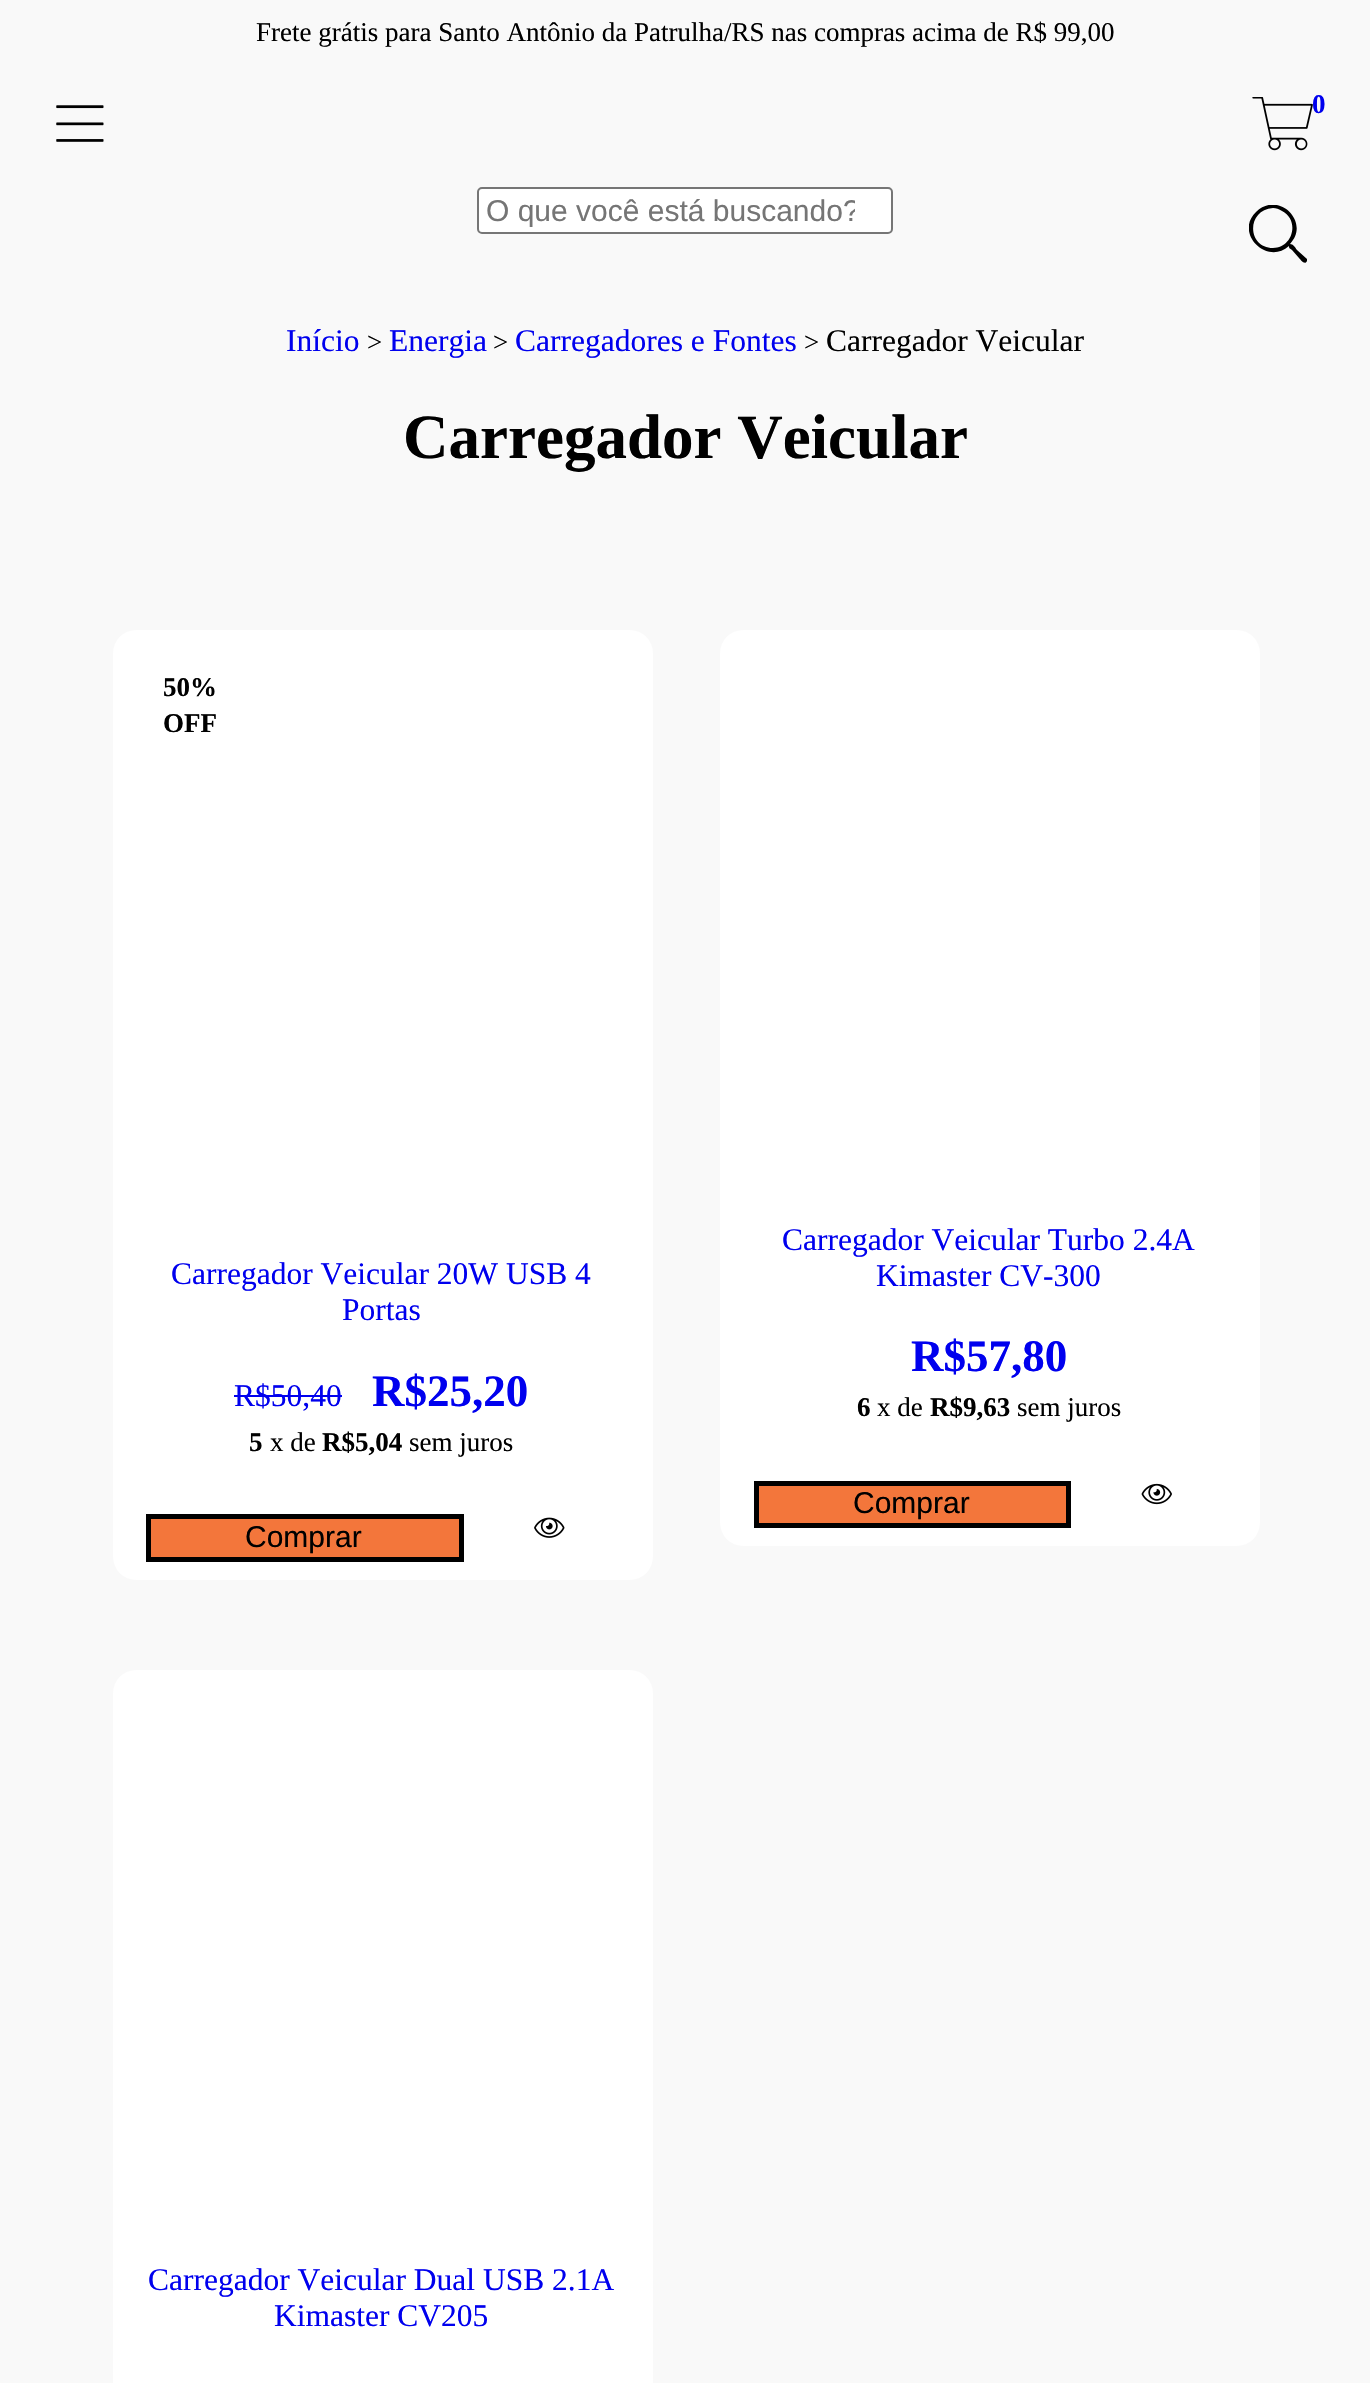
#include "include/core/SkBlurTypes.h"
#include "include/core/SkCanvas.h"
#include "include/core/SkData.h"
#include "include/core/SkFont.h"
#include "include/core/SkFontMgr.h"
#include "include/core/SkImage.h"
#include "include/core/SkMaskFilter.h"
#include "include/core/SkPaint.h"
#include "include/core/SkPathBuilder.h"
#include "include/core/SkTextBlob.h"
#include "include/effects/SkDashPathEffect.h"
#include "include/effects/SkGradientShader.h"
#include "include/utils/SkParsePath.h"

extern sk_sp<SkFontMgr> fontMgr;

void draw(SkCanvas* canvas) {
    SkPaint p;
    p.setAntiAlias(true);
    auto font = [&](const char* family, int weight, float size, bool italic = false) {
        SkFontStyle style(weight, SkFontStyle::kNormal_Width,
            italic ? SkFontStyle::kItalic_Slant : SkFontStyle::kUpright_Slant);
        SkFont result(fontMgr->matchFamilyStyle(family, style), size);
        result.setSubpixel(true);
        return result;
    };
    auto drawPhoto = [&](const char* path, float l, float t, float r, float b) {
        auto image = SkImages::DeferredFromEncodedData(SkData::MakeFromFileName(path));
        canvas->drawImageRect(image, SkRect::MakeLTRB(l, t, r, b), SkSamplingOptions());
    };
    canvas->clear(0xFFF9F9F9);
    auto font1 = font("Liberation Serif", 400, 27);
    p.setColor(0xFF000000);
    canvas->drawString("Frete grátis para Santo Antônio da Patrulha/RS nas compras acima de R$ 99,00", 256, 41, font1, p);
    drawPhoto("media/1.png", 56, 105, 104, 142);
    drawPhoto("media/2.png", 1252, 97, 1313, 151);
    auto font2 = font("Liberation Serif", 700, 27);
    p.setColor(0xFF0000EE);
    canvas->drawString("0", 1312, 113, font2, p);
    p.setColor(0xFFFFFFFF);
    canvas->drawRoundRect(SkRect::MakeLTRB(478, 188, 892, 233), 4, 4, p);
    p.setStyle(SkPaint::kStroke_Style);
    p.setStrokeWidth(2);
    p.setColor(0xFF767676);
    canvas->drawRoundRect(SkRect::MakeLTRB(478, 188, 892, 233), 4, 4, p);
    canvas->save();
    canvas->clipRect(SkRect::MakeLTRB(486, 194, 855, 227));
    auto font3 = font("Liberation Sans", 400, 30);
    p.setStyle(SkPaint::kFill_Style);
    p.setColor(0xFF757575);
    canvas->drawString("O que você está buscando?", 486, 221, font3, p);
    canvas->restore();
    canvas->save();
    canvas->clipRect(SkRect::MakeLTRB(1249, 205, 1309, 265));
    p.setColor(0xFF000000);
    canvas->drawPath(SkPathBuilder().moveTo(1307, 259).lineTo(1297, 250).cubicTo(1295, 247, 1293, 244, 1290, 244).cubicTo(1311, 222, 1278, 190, 1256, 212).cubicTo(1234, 233, 1267, 266, 1289, 246).cubicTo(1289, 248, 1289, 248, 1292, 250).lineTo(1299, 258).cubicTo(1300, 259, 1305, 266, 1307, 261).close().moveTo(1273, 248).cubicTo(1247, 248, 1246, 210, 1273, 208).cubicTo(1276, 208, 1279, 209, 1282, 211).cubicTo(1300, 220, 1293, 248, 1273, 248).close().detach(), p);
    canvas->restore();
    auto font4 = font("Liberation Serif", 400, 31.5f);
    p.setColor(0xFF0000EE);
    canvas->drawString("Início", 286, 351, font4, p);
    p.setColor(0xFF000000);
    canvas->drawString(">", 367, 351, font1, p);
    p.setColor(0xFF0000EE);
    canvas->drawString("Energia", 389, 351, font4, p);
    p.setColor(0xFF000000);
    canvas->drawString(">", 493, 351, font1, p);
    p.setColor(0xFF0000EE);
    canvas->drawString("Carregadores e Fontes", 515, 351, font4, p);
    p.setColor(0xFF000000);
    canvas->drawString(">", 804, 351, font1, p);
    canvas->drawString("Carregador Veicular", 826, 351, font4, p);
    auto font5 = font("Liberation Serif", 700, 63);
    canvas->drawString("Carregador Veicular", 403, 458, font5, p);
    p.setColor(0xFFFFFFFF);
    canvas->drawRoundRect(SkRect::MakeLTRB(113, 630, 653, 1580), 23, 23, p);
    p.setColor(0xFF000000);
    canvas->drawString("50%", 163, 696, font2, p);
    canvas->drawString("OFF", 163, 732, font2, p);
    p.setColor(0xFF0000EE);
    {
        const struct { const char* s; float x, y; } items[] = {
            {"Carregador Veicular 20W USB 4", 171, 1284},
            {"Portas", 342, 1320},
            {"R$50,40", 234, 1406},
        };
        for (auto [s, x, y] : items) {
            canvas->drawString(s, x, y, font4, p);
        }
    }
    canvas->drawRect(SkRect::MakeLTRB(234, 1395, 342, 1397), p);
    auto font6 = font("Liberation Serif", 700, 45);
    canvas->drawString("R$25,20", 372, 1406, font6, p);
    p.setColor(0xFF000000);
    canvas->drawString("5", 249, 1451, font2, p);
    canvas->drawString("x de", 270, 1451, font1, p);
    canvas->drawString("R$5,04", 322, 1451, font2, p);
    canvas->drawString("sem juros", 409, 1451, font1, p);
    p.setColor(0xFFF3763B);
    canvas->drawRect(SkRect::MakeLTRB(148.5f, 1516.5f, 461.5f, 1559.5f), p);
    p.setStyle(SkPaint::kStroke_Style);
    p.setStrokeWidth(5);
    p.setColor(0xFF000000);
    canvas->drawRect(SkRect::MakeLTRB(148.5f, 1516.5f, 461.5f, 1559.5f), p);
    p.setStyle(SkPaint::kFill_Style);
    canvas->drawString("Comprar", 245, 1547, font3, p);
    drawPhoto("media/3.png", 534, 1517, 565, 1538);
    p.setColor(0xFFFFFFFF);
    canvas->drawRoundRect(SkRect::MakeLTRB(720, 630, 1260, 1546), 23, 23, p);
    p.setColor(0xFF0000EE);
    canvas->drawString("Carregador Veicular Turbo 2.4A", 782, 1250, font4, p);
    canvas->drawString("Kimaster CV-300", 876, 1286, font4, p);
    canvas->drawString("R$57,80", 911, 1371, font6, p);
    p.setColor(0xFF000000);
    canvas->drawString("6", 857, 1416, font2, p);
    canvas->drawString("x de", 877, 1416, font1, p);
    canvas->drawString("R$9,63", 930, 1416, font2, p);
    canvas->drawString("sem juros", 1017, 1416, font1, p);
    p.setColor(0xFFF3763B);
    canvas->drawRect(SkRect::MakeLTRB(756.5f, 1483.5f, 1068.5f, 1525.5f), p);
    p.setStyle(SkPaint::kStroke_Style);
    p.setColor(0xFF000000);
    canvas->drawRect(SkRect::MakeLTRB(756.5f, 1483.5f, 1068.5f, 1525.5f), p);
    p.setStyle(SkPaint::kFill_Style);
    canvas->drawString("Comprar", 853, 1513, font3, p);
    drawPhoto("media/4.png", 1141, 1483, 1172, 1505);
    p.setColor(0xFFFFFFFF);
    canvas->drawRoundRect(SkRect::MakeLTRB(113, 1670, 653, 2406), 23, 23, p);
    p.setColor(0xFF0000EE);
    canvas->drawString("Carregador Veicular Dual USB 2.1A", 148, 2290, font4, p);
    canvas->drawString("Kimaster CV205", 274, 2326, font4, p);
}
